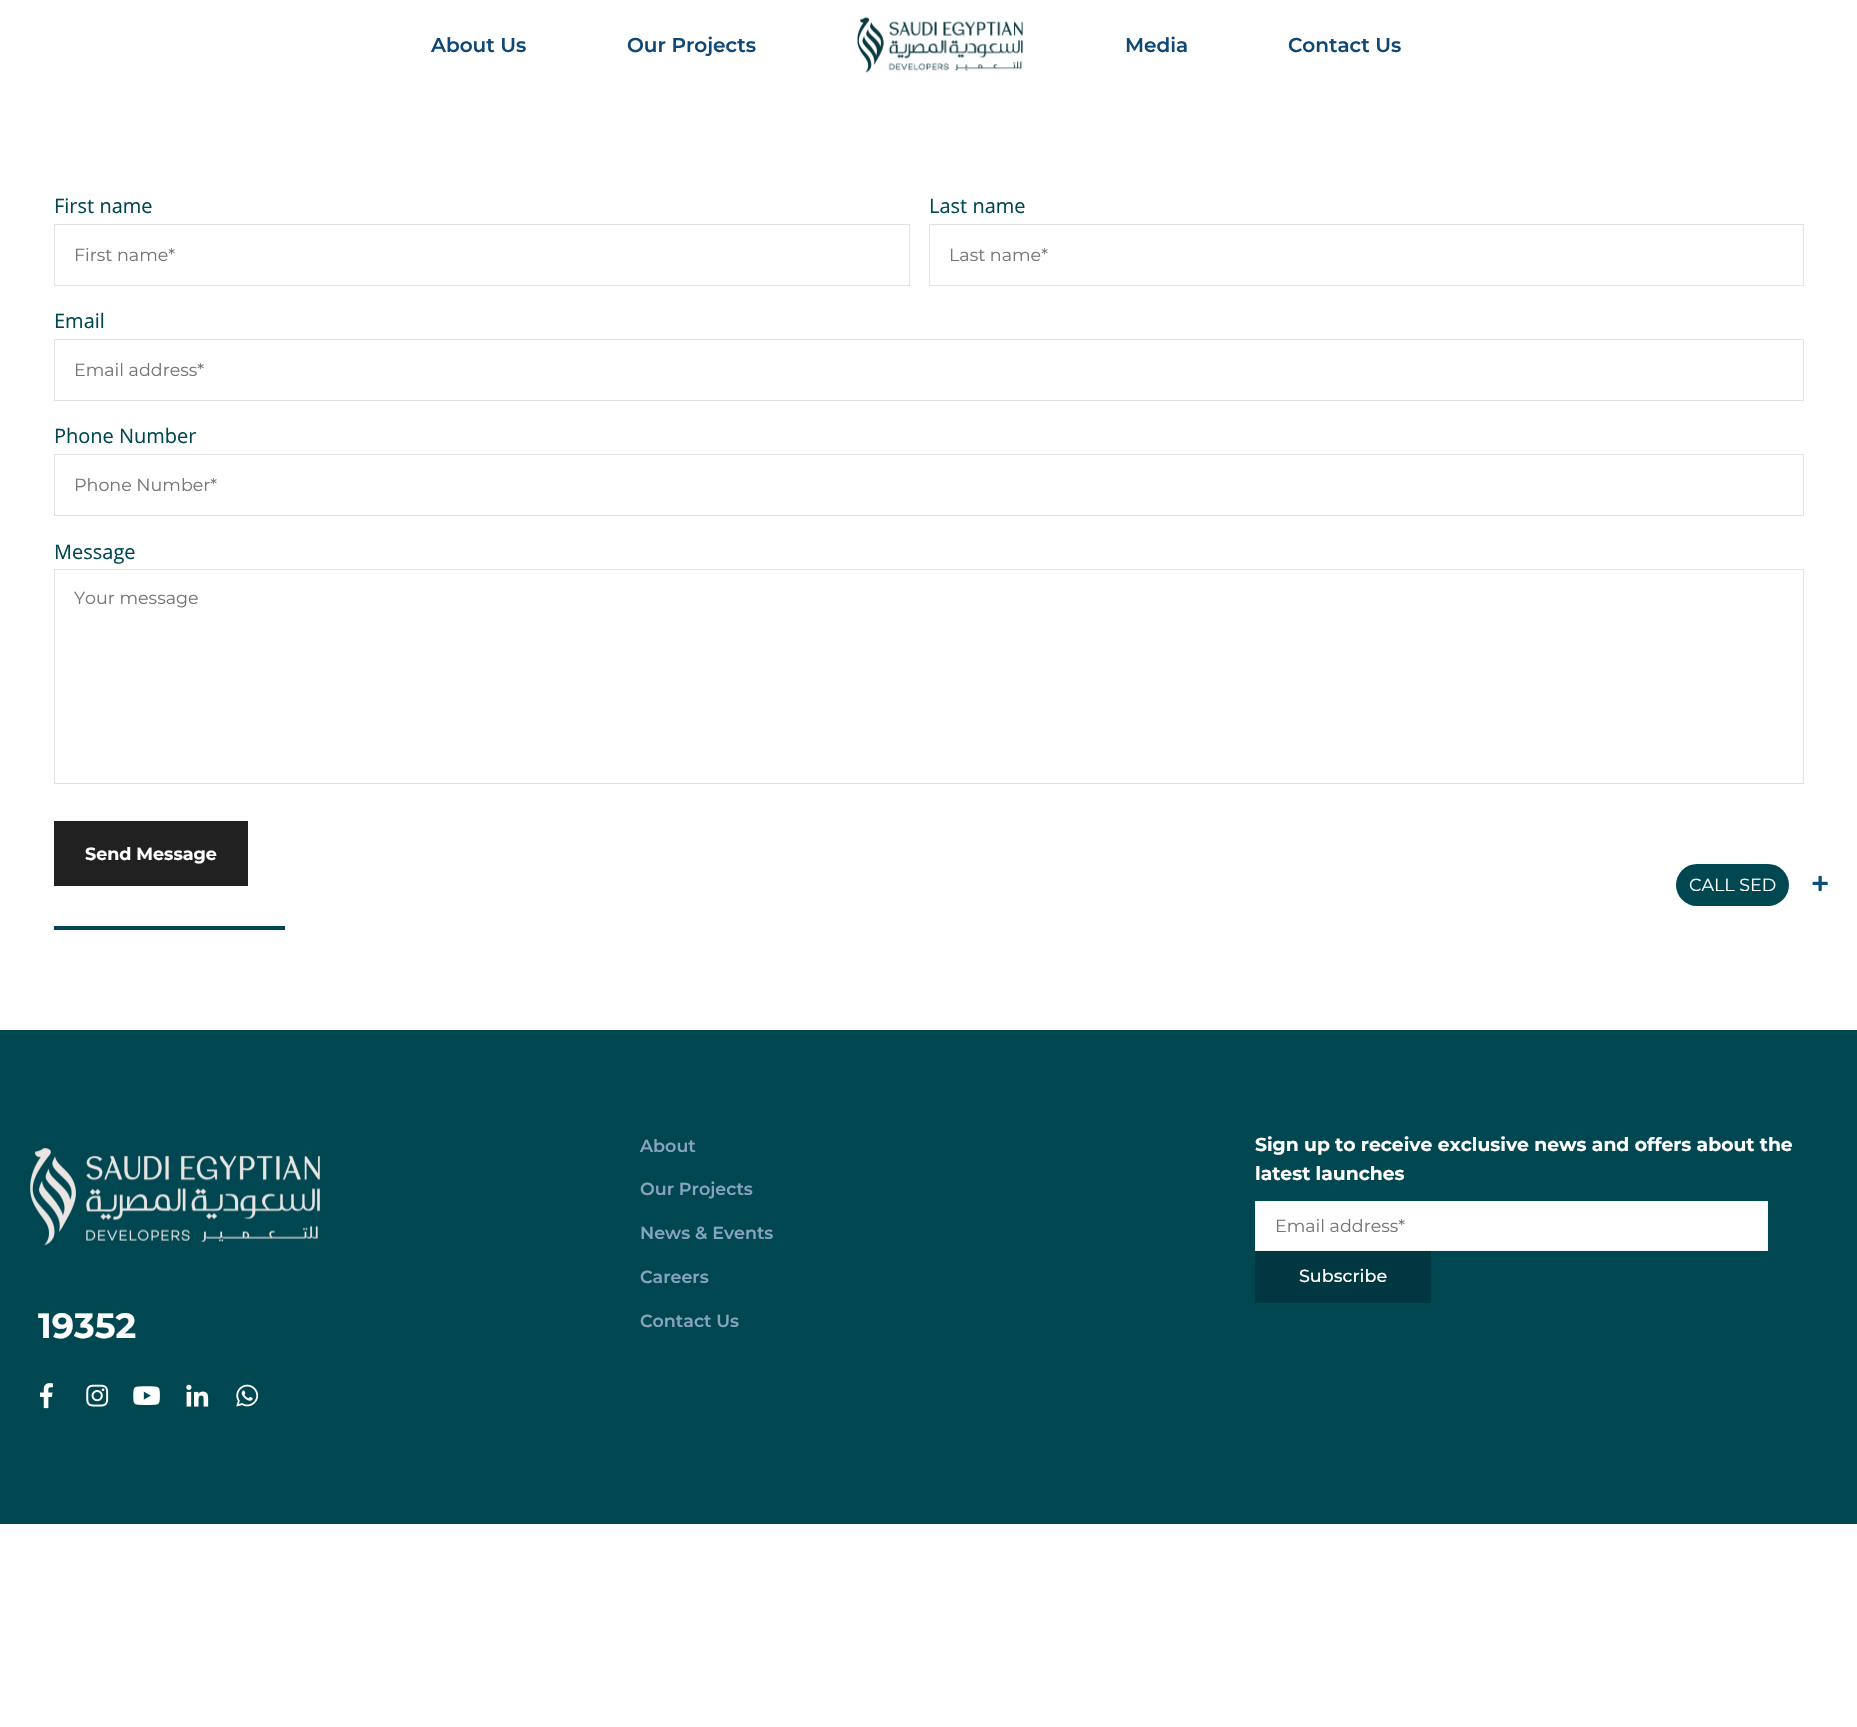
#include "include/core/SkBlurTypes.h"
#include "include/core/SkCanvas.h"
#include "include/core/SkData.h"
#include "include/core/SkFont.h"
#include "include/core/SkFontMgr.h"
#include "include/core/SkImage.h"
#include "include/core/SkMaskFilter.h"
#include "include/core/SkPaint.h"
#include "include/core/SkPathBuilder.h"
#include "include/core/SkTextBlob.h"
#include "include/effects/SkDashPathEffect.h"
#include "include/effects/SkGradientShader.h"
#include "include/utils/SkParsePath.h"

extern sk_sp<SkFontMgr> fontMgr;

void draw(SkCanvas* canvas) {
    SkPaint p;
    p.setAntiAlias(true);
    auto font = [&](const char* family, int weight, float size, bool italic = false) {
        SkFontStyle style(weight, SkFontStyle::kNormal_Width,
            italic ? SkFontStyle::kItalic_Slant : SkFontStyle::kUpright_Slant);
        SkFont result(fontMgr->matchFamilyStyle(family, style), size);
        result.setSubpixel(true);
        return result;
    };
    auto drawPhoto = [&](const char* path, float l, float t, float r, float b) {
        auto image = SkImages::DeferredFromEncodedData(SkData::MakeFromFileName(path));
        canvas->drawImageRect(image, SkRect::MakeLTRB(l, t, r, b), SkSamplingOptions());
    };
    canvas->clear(0xFFFFFFFF);
    auto font1 = font("Montserrat", 600, 20);
    p.setColor(0xFF0E4877);
    canvas->drawString("About Us", 431, 52, font1, p);
    canvas->drawString("Our Projects", 627, 52, font1, p);
    drawPhoto("media/1.png", 857, 16, 1024, 73);
    canvas->drawString("Media", 1125, 52, font1, p);
    canvas->drawString("Contact Us", 1288, 52, font1, p);
    auto font2 = font("Open Sans", 400, 20);
    p.setColor(0xFF004752);
    canvas->drawString("First name", 54, 213, font2, p);
    p.setStyle(SkPaint::kStroke_Style);
    p.setStrokeWidth(1);
    p.setColor(0xFFE2E2E2);
    canvas->drawRect(SkRect::MakeLTRB(54.5f, 224.5f, 909.5f, 285.5f), p);
    auto font3 = font("Montserrat", 400, 17.5f);
    p.setStyle(SkPaint::kFill_Style);
    p.setColor(0xFF757575);
    canvas->drawString("First name*", 74, 261, font3, p);
    p.setColor(0xFF004752);
    canvas->drawString("Last name", 929, 213, font2, p);
    p.setStyle(SkPaint::kStroke_Style);
    p.setColor(0xFFE2E2E2);
    canvas->drawRect(SkRect::MakeLTRB(929.5f, 224.5f, 1803.5f, 285.5f), p);
    p.setStyle(SkPaint::kFill_Style);
    p.setColor(0xFF757575);
    canvas->drawString("Last name*", 949, 261, font3, p);
    p.setColor(0xFF004752);
    canvas->drawString("Email", 54, 328, font2, p);
    p.setStyle(SkPaint::kStroke_Style);
    p.setColor(0xFFE2E2E2);
    canvas->drawRect(SkRect::MakeLTRB(54.5f, 339.5f, 1803.5f, 400.5f), p);
    p.setStyle(SkPaint::kFill_Style);
    p.setColor(0xFF757575);
    canvas->drawString("Email address*", 74, 376, font3, p);
    p.setColor(0xFF004752);
    canvas->drawString("Phone Number", 54, 443, font2, p);
    p.setStyle(SkPaint::kStroke_Style);
    p.setColor(0xFFE2E2E2);
    canvas->drawRect(SkRect::MakeLTRB(54.5f, 454.5f, 1803.5f, 515.5f), p);
    p.setStyle(SkPaint::kFill_Style);
    p.setColor(0xFF757575);
    canvas->drawString("Phone Number*", 74, 491, font3, p);
    p.setColor(0xFF004752);
    canvas->drawString("Message", 54, 559, font2, p);
    p.setStyle(SkPaint::kStroke_Style);
    p.setColor(0xFFE2E2E2);
    canvas->drawRect(SkRect::MakeLTRB(54.5f, 569.5f, 1803.5f, 783.5f), p);
    p.setStyle(SkPaint::kFill_Style);
    p.setColor(0xFF757575);
    canvas->drawString("Your message", 74, 604, font3, p);
    p.setColor(0xFF004752);
    canvas->drawRect(SkRect::MakeLTRB(54, 926, 285, 930), p);
    p.setColor(0xFF212121);
    canvas->drawRect(SkRect::MakeLTRB(54, 821, 248, 886), p);
    auto font4 = font("Montserrat", 700, 17.5f);
    p.setColor(0xFFFFFFFF);
    canvas->drawString("Send Message", 85, 860, font4, p);
    p.setColor(0xFF004752);
    canvas->drawRoundRect(SkRect::MakeLTRB(1676, 864, 1789, 906), 21, 21, p);
    p.setColor(0xFFFFFFFF);
    canvas->drawString("CALL SED", 1689, 891, font3, p);
    drawPhoto("media/2.png", 1812, 875, 1828, 892);
    p.setColor(0xFF004752);
    canvas->drawRect(SkRect::MakeLTRB(0, 1030, 1857, 1524), p);
    drawPhoto("media/3.png", 30, 1148, 320, 1246);
    auto font5 = font("Montserrat", 700, 35);
    p.setColor(0xFFFFFFFF);
    canvas->drawString("19352", 38, 1338, font5, p);
    drawPhoto("media/4.png", 40, 1383, 53, 1409);
    drawPhoto("media/5.png", 86, 1384, 109, 1407);
    drawPhoto("media/6.png", 133, 1386, 160, 1405);
    drawPhoto("media/7.png", 186, 1384, 209, 1407);
    drawPhoto("media/8.png", 236, 1384, 259, 1407);
    auto font6 = font("Montserrat", 600, 17.5f);
    p.setColor(0xFF88A4BA);
    {
        const struct { const char* s; float x, y; } items[] = {
            {"About", 640, 1152},
            {"Our Projects", 640, 1195},
            {"News & Events", 640, 1239},
            {"Careers", 640, 1283},
            {"Contact Us", 640, 1327},
        };
        for (auto [s, x, y] : items) {
            canvas->drawString(s, x, y, font6, p);
        }
    }
    auto font7 = font("Montserrat", 700, 18.75f);
    p.setColor(0xFFFFFFFF);
    canvas->drawString("Sign up to receive exclusive news and offers about the", 1255, 1151, font7, p);
    canvas->drawString("latest launches", 1255, 1180, font7, p);
    canvas->drawRect(SkRect::MakeLTRB(1255.5f, 1201.5f, 1767.5f, 1250.5f), p);
    p.setStyle(SkPaint::kStroke_Style);
    p.setColor(0xFFF5F5F4);
    canvas->drawRect(SkRect::MakeLTRB(1255.5f, 1201.5f, 1767.5f, 1250.5f), p);
    p.setStyle(SkPaint::kFill_Style);
    p.setColor(0xFF757575);
    canvas->drawString("Email address*", 1275, 1232, font3, p);
    p.setColor(0xFF003740);
    canvas->drawRect(SkRect::MakeLTRB(1255, 1251, 1431, 1303), p);
    auto font8 = font("Montserrat", 500, 17.5f);
    p.setColor(0xFFFFFFFF);
    canvas->drawString("Subscribe", 1299, 1282, font8, p);
}
